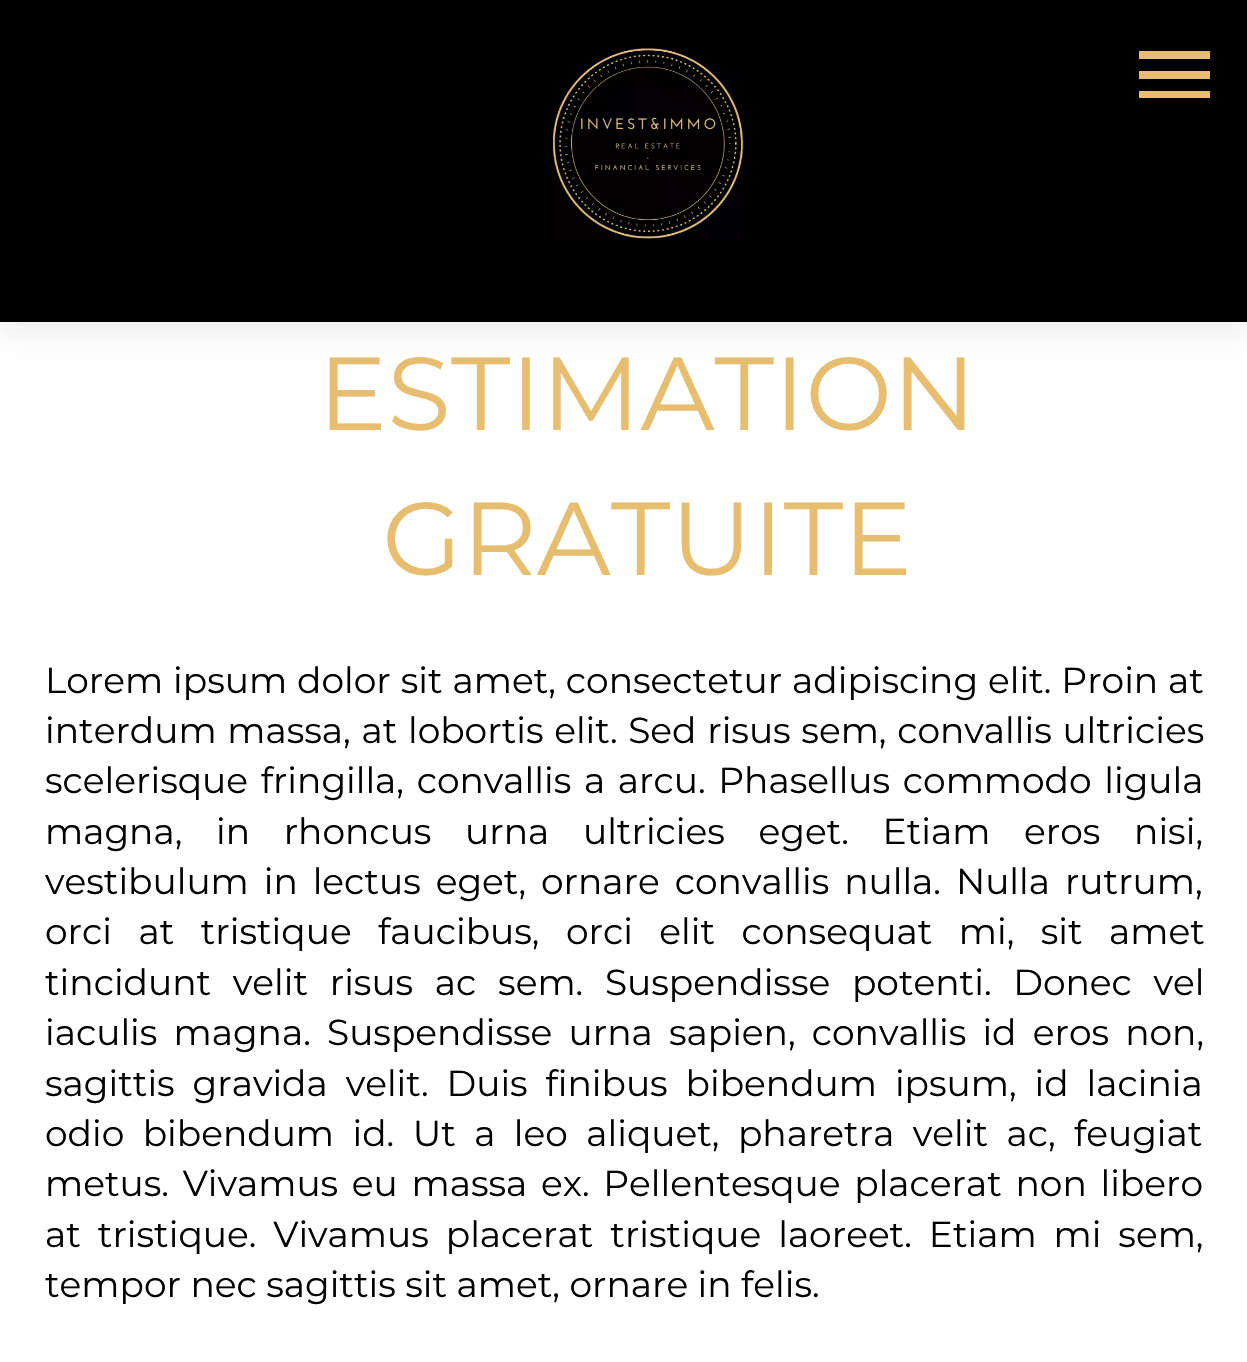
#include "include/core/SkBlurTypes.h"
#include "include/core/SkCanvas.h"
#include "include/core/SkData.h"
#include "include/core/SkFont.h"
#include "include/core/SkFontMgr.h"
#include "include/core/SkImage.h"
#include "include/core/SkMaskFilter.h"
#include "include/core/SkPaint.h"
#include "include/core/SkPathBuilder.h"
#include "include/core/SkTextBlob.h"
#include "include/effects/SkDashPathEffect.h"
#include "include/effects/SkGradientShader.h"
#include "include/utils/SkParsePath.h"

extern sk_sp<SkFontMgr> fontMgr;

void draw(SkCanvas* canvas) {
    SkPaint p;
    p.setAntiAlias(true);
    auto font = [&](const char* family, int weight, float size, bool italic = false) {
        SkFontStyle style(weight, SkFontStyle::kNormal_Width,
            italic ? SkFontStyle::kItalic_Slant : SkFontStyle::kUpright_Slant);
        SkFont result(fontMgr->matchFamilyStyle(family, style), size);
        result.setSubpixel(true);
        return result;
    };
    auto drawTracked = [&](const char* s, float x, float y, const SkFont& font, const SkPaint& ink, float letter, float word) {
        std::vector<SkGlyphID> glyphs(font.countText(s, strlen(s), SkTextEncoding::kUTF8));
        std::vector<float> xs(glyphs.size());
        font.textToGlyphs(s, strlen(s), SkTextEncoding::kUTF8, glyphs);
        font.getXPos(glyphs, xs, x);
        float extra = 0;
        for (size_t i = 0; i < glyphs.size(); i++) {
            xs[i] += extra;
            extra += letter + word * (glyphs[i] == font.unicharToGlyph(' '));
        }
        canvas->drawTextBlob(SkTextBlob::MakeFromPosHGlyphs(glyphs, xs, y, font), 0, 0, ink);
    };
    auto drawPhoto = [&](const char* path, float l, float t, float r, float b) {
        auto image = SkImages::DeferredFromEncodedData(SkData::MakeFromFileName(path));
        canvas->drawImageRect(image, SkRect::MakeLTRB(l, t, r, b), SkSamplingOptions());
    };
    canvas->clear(0xFFFFFFFF);
    p.setColor(0x14000000);
    p.setMaskFilter(SkMaskFilter::MakeBlur(kNormal_SkBlurStyle, 13.5f));
    canvas->drawRect(SkRect::MakeLTRB(0, 9, 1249, 331), p);
    p.setMaskFilter(nullptr);
    p.setColor(0xFF000000);
    canvas->drawRect(SkRect::MakeLTRB(0, 0, 1247, 322), p);
    drawPhoto("media/1.png", 552, 46, 746, 240);
    p.setColor(0xFFE7BD70);
    canvas->drawPath(SkPathBuilder().moveTo(1139, 51).lineTo(1210, 51).lineTo(1210, 59).lineTo(1139, 59).close().moveTo(1139, 71).lineTo(1210, 71).lineTo(1210, 79).lineTo(1139, 79).close().moveTo(1139, 91).lineTo(1210, 91).lineTo(1210, 98).lineTo(1139, 98).close().detach(), p);
    auto font1 = font("Montserrat", 400, 103.5f);
    canvas->drawString("ESTIMATION", 318, 430, font1, p);
    canvas->drawString("GRATUITE", 382, 575, font1, p);
    auto font2 = font("Montserrat", 400, 36);
    p.setColor(0xFF000000);
    drawTracked("Lorem ipsum dolor sit amet, consectetur adipiscing elit. Proin at", 45, 693, font2, p, 0, 0.5f);
    drawTracked("interdum massa, at lobortis elit. Sed risus sem, convallis ultricies", 45, 743, font2, p, 0, 1.25f);
    drawTracked("scelerisque fringilla, convallis a arcu. Phasellus commodo ligula", 45, 793, font2, p, 0, 3.25f);
    drawTracked("magna, in rhoncus urna ultricies eget. Etiam eros nisi,", 45, 844, font2, p, 0, 24.25f);
    drawTracked("vestibulum in lectus eget, ornare convallis nulla. Nulla rutrum,", 45, 894, font2, p, 0, 5.5f);
    drawTracked("orci at tristique faucibus, orci elit consequat mi, sit amet", 45, 944, font2, p, 0, 17);
    drawTracked("tincidunt velit risus ac sem. Suspendisse potenti. Donec vel", 45, 995, font2, p, 0, 12.25f);
    drawTracked("iaculis magna. Suspendisse urna sapien, convallis id eros non,", 45, 1045, font2, p, 0, 6.75f);
    drawTracked("sagittis gravida velit. Duis finibus bibendum ipsum, id lacinia", 45, 1096, font2, p, 0, 8.5f);
    drawTracked("odio bibendum id. Ut a leo aliquet, pharetra velit ac, feugiat", 45, 1146, font2, p, 0, 9);
    drawTracked("metus. Vivamus eu massa ex. Pellentesque placerat non libero", 45, 1196, font2, p, 0, 4.25f);
    drawTracked("at tristique. Vivamus placerat tristique laoreet. Etiam mi sem,", 45, 1247, font2, p, 0, 7.5f);
    canvas->drawString("tempor nec sagittis sit amet, ornare in felis.", 45, 1297, font2, p);
}
